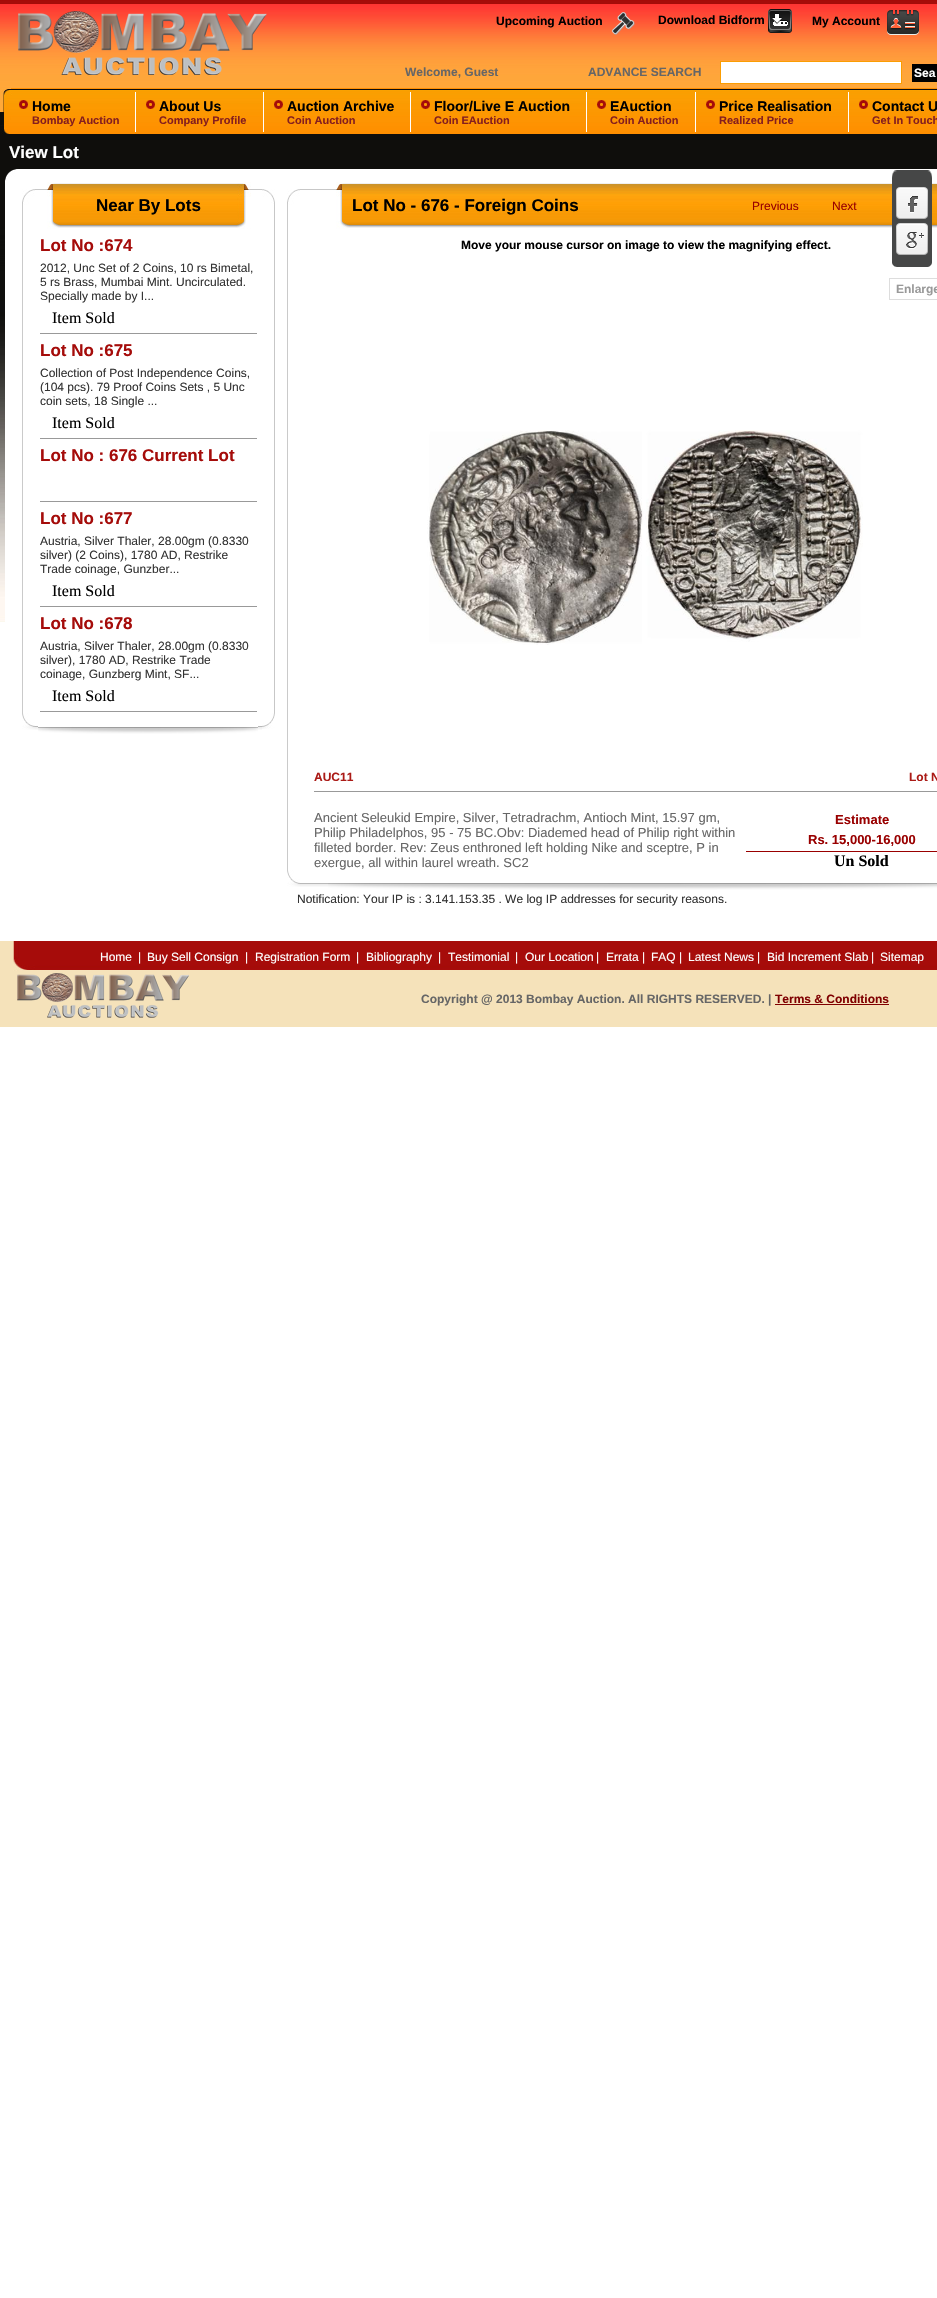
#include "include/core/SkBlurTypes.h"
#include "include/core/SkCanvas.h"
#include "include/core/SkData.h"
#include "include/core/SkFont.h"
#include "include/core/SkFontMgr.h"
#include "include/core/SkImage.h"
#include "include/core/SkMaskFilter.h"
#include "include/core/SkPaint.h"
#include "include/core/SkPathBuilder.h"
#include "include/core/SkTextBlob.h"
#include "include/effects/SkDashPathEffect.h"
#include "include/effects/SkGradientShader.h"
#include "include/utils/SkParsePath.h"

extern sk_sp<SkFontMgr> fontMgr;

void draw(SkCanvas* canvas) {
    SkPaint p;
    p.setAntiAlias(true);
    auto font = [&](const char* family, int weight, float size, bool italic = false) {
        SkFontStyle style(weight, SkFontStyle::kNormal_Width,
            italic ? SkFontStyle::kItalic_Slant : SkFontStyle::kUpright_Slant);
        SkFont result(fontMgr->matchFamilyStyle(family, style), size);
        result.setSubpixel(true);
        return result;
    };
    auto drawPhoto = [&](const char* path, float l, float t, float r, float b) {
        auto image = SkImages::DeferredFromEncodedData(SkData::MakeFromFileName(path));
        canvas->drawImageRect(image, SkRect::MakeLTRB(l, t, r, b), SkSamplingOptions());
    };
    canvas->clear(0xFFFFFFFF);
    drawPhoto("media/1.png", 0, 0, 937, 622);
    drawPhoto("media/2.png", 18, 11, 267, 75);
    auto font1 = font("Liberation Sans", 700, 12);
    p.setColor(0xFF000000);
    canvas->drawString("Upcoming Auction", 496, 25, font1, p);
    drawPhoto("media/3.png", 611, 12, 635, 35);
    canvas->drawString("Download Bidform", 658, 24, font1, p);
    drawPhoto("media/4.png", 768, 9, 792, 33);
    canvas->drawString("My Account", 812, 25, font1, p);
    drawPhoto("media/5.png", 887, 10, 919, 35);
    p.setColor(0xFF666666);
    canvas->drawString("Welcome, Guest", 405, 76, font1, p);
    canvas->drawString("ADVANCE SEARCH", 588, 76, font1, p);
    p.setColor(0xFFFFFFFF);
    canvas->drawRect(SkRect::MakeLTRB(720.5f, 61.5f, 901.5f, 83.5f), p);
    p.setStyle(SkPaint::kStroke_Style);
    p.setStrokeWidth(1);
    p.setColor(0xFFFB9D02);
    canvas->drawRect(SkRect::MakeLTRB(720.5f, 61.5f, 901.5f, 83.5f), p);
    p.setStyle(SkPaint::kFill_Style);
    p.setColor(0xFF000000);
    canvas->drawRect(SkRect::MakeLTRB(912, 64, 937, 82), p);
    p.setColor(0xFFFFFFFF);
    canvas->drawString("Sea", 914, 77, font1, p);
    drawPhoto("media/6.png", 1, 88, 12, 134);
    drawPhoto("media/7.png", 12, 88, 937, 134);
    drawPhoto("media/8.png", 19, 100, 28, 109);
    canvas->drawRect(SkRect::MakeLTRB(135, 92, 136, 132), p);
    auto font2 = font("Liberation Sans", 700, 14);
    p.setColor(0xFF000000);
    canvas->drawString("Home", 32, 111, font2, p);
    auto font3 = font("Liberation Sans", 700, 11);
    p.setColor(0xFF851E1E);
    canvas->drawString("Bombay Auction", 32, 124, font3, p);
    drawPhoto("media/8.png", 146, 100, 155, 109);
    p.setColor(0xFFFFFFFF);
    canvas->drawRect(SkRect::MakeLTRB(263, 92, 264, 132), p);
    p.setColor(0xFF000000);
    canvas->drawString("About Us", 159, 111, font2, p);
    p.setColor(0xFF851E1E);
    canvas->drawString("Company Profile", 159, 124, font3, p);
    drawPhoto("media/8.png", 274, 100, 283, 109);
    p.setColor(0xFFFFFFFF);
    canvas->drawRect(SkRect::MakeLTRB(410, 92, 411, 132), p);
    p.setColor(0xFF000000);
    canvas->drawString("Auction Archive", 287, 111, font2, p);
    p.setColor(0xFF851E1E);
    canvas->drawString("Coin Auction", 287, 124, font3, p);
    drawPhoto("media/8.png", 421, 100, 430, 109);
    p.setColor(0xFFFFFFFF);
    canvas->drawRect(SkRect::MakeLTRB(586, 92, 587, 132), p);
    p.setColor(0xFF000000);
    canvas->drawString("Floor/Live E Auction", 434, 111, font2, p);
    p.setColor(0xFF851E1E);
    canvas->drawString("Coin EAuction", 434, 124, font3, p);
    drawPhoto("media/8.png", 597, 100, 606, 109);
    p.setColor(0xFFFFFFFF);
    canvas->drawRect(SkRect::MakeLTRB(695, 92, 696, 132), p);
    p.setColor(0xFF000000);
    canvas->drawString("EAuction", 610, 111, font2, p);
    p.setColor(0xFF851E1E);
    canvas->drawString("Coin Auction", 610, 124, font3, p);
    drawPhoto("media/8.png", 706, 100, 715, 109);
    p.setColor(0xFFFFFFFF);
    canvas->drawRect(SkRect::MakeLTRB(848, 92, 849, 132), p);
    p.setColor(0xFF000000);
    canvas->drawString("Price Realisation", 719, 111, font2, p);
    p.setColor(0xFF851E1E);
    canvas->drawString("Realized Price", 719, 124, font3, p);
    drawPhoto("media/8.png", 859, 100, 868, 109);
    p.setColor(0xFF000000);
    canvas->drawString("Contact U", 872, 111, font2, p);
    p.setColor(0xFF851E1E);
    canvas->drawString("Get In Touch", 872, 124, font3, p);
    auto font4 = font("Liberation Sans", 700, 17);
    p.setColor(0xFFFFFFFF);
    canvas->drawString("View Lot", 9, 158, font4, p);
    drawPhoto("media/9.png", 5, 169, 18, 181);
    canvas->drawRect(SkRect::MakeLTRB(18, 169, 937, 181), p);
    canvas->drawRect(SkRect::MakeLTRB(5, 181, 937, 622), p);
    drawPhoto("media/10.png", 22, 189, 35, 230);
    p.setColor(0xFFC7C7C7);
    canvas->drawRect(SkRect::MakeLTRB(35, 189, 262, 190), p);
    drawPhoto("media/11.png", 47, 182, 60, 229);
    drawPhoto("media/12.png", 60, 183, 237, 228);
    p.setColor(0xFF000000);
    canvas->drawString("Near By Lots", 96, 211, font4, p);
    drawPhoto("media/13.png", 237, 182, 251, 229);
    drawPhoto("media/14.png", 262, 189, 275, 230);
    p.setColor(0xFFCACACA);
    canvas->drawRect(SkRect::MakeLTRB(22, 230, 23, 713), p);
    p.setColor(0xFFA50C0A);
    canvas->drawString("Lot No :674", 40, 251, font4, p);
    auto font5 = font("Liberation Sans", 400, 12);
    p.setColor(0xFF333333);
    {
        const struct { const char* s; float x, y; } items[] = {
            {"2012, Unc Set of 2 Coins, 10 rs Bimetal,", 40, 272},
            {"5 rs Brass, Mumbai Mint. Uncirculated.", 40, 286},
            {"Specially made by I...", 40, 300},
        };
        for (auto [s, x, y] : items) {
            canvas->drawString(s, x, y, font5, p);
        }
    }
    p.setColor(0xFF999999);
    canvas->drawRect(SkRect::MakeLTRB(40, 333, 257, 334), p);
    auto font6 = font("Liberation Serif", 400, 16);
    p.setColor(0xFF000000);
    canvas->drawString("Item Sold", 52, 323, font6, p);
    p.setColor(0xFFA50C0A);
    canvas->drawString("Lot No :675", 40, 356, font4, p);
    p.setColor(0xFF333333);
    {
        const struct { const char* s; float x, y; } items[] = {
            {"Collection of Post Independence Coins,", 40, 377},
            {"(104 pcs). 79 Proof Coins Sets , 5 Unc", 40, 391},
            {"coin sets, 18 Single ...", 40, 405},
        };
        for (auto [s, x, y] : items) {
            canvas->drawString(s, x, y, font5, p);
        }
    }
    p.setColor(0xFF999999);
    canvas->drawRect(SkRect::MakeLTRB(40, 438, 257, 439), p);
    p.setColor(0xFF000000);
    canvas->drawString("Item Sold", 52, 428, font6, p);
    p.setColor(0xFFA50C0A);
    canvas->drawString("Lot No : 676 Current Lot", 40, 461, font4, p);
    p.setColor(0xFF999999);
    canvas->drawRect(SkRect::MakeLTRB(40, 501, 257, 502), p);
    p.setColor(0xFFA50C0A);
    canvas->drawString("Lot No :677", 40, 524, font4, p);
    p.setColor(0xFF333333);
    {
        const struct { const char* s; float x, y; } items[] = {
            {"Austria, Silver Thaler, 28.00gm (0.8330", 40, 545},
            {"silver) (2 Coins), 1780 AD, Restrike", 40, 559},
            {"Trade coinage, Gunzber...", 40, 573},
        };
        for (auto [s, x, y] : items) {
            canvas->drawString(s, x, y, font5, p);
        }
    }
    p.setColor(0xFF999999);
    canvas->drawRect(SkRect::MakeLTRB(40, 606, 257, 607), p);
    p.setColor(0xFF000000);
    canvas->drawString("Item Sold", 52, 596, font6, p);
    p.setColor(0xFFA50C0A);
    canvas->drawString("Lot No :678", 40, 629, font4, p);
    p.setColor(0xFF333333);
    {
        const struct { const char* s; float x, y; } items[] = {
            {"Austria, Silver Thaler, 28.00gm (0.8330", 40, 650},
            {"silver), 1780 AD, Restrike Trade", 40, 664},
            {"coinage, Gunzberg Mint, SF...", 40, 678},
        };
        for (auto [s, x, y] : items) {
            canvas->drawString(s, x, y, font5, p);
        }
    }
    p.setColor(0xFF999999);
    canvas->drawRect(SkRect::MakeLTRB(40, 711, 257, 712), p);
    p.setColor(0xFF000000);
    canvas->drawString("Item Sold", 52, 701, font6, p);
    p.setColor(0xFFC7C7C7);
    canvas->drawRect(SkRect::MakeLTRB(274, 230, 275, 713), p);
    drawPhoto("media/15.png", 22, 713, 35, 730);
    drawPhoto("media/16.png", 262, 713, 275, 729);
    drawPhoto("media/17.png", 35, 726, 262, 730);
    drawPhoto("media/18.png", 38, 726, 258, 734);
    drawPhoto("media/10.png", 287, 189, 300, 230);
    canvas->drawRect(SkRect::MakeLTRB(300, 189, 336, 190), p);
    drawPhoto("media/11.png", 336, 182, 349, 229);
    drawPhoto("media/19.png", 349, 183, 937, 228);
    p.setColor(0xFF000000);
    canvas->drawString("Lot No - 676 - Foreign Coins", 352, 211, font4, p);
    p.setColor(0xFF990000);
    canvas->drawString("Previous", 752, 210, font5, p);
    canvas->drawString("Next", 832, 210, font5, p);
    p.setColor(0xFFCACACA);
    canvas->drawRect(SkRect::MakeLTRB(287, 230, 288, 870), p);
    p.setColor(0xFF000000);
    canvas->drawString("Move your mouse cursor on image to view the magnifying effect.", 461, 249, font1, p);
    p.setStyle(SkPaint::kStroke_Style);
    p.setColor(0xFFDDDDDD);
    canvas->drawRect(SkRect::MakeLTRB(889.5f, 278.5f, 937.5f, 299.5f), p);
    p.setStyle(SkPaint::kFill_Style);
    p.setColor(0xFF999999);
    canvas->drawString("Enlarge", 896, 293, font1, p);
    drawPhoto("media/20.png", 427, 430, 863, 645);
    canvas->drawRect(SkRect::MakeLTRB(314, 791, 937, 792), p);
    p.setColor(0xFFAB1B17);
    canvas->drawString("AUC11", 314, 781, font1, p);
    canvas->drawString("Lot N", 909, 781, font1, p);
    auto font7 = font("Liberation Sans", 400, 13);
    p.setColor(0xFF666666);
    {
        const struct { const char* s; float x, y; } items[] = {
            {"Ancient Seleukid Empire, Silver, Tetradrachm, Antioch Mint, 15.97 gm,", 314, 822},
            {"Philip Philadelphos, 95 - 75 BC.Obv: Diademed head of Philip right within", 314, 837},
            {"filleted border. Rev: Zeus enthroned left holding Nike and sceptre, P in", 314, 852},
            {"exergue, all within laurel wreath. SC2", 314, 867},
        };
        for (auto [s, x, y] : items) {
            canvas->drawString(s, x, y, font7, p);
        }
    }
    p.setColor(0xFF990000);
    canvas->drawRect(SkRect::MakeLTRB(746, 851, 937, 852), p);
    auto font8 = font("Liberation Sans", 700, 13);
    canvas->drawString("Estimate", 835, 824, font8, p);
    canvas->drawString("Rs. 15,000-16,000", 808, 844, font8, p);
    auto font9 = font("Liberation Serif", 700, 16);
    p.setColor(0xFF000000);
    canvas->drawString("Un Sold", 834, 866, font9, p);
    drawPhoto("media/15.png", 287, 870, 300, 887);
    drawPhoto("media/21.png", 300, 883, 328, 887);
    drawPhoto("media/22.png", 328, 883, 937, 890);
    p.setColor(0xFF333333);
    canvas->drawString("Notification: Your IP is : 3.141.153.35 . We log IP addresses for security reasons.", 297, 903, font5, p);
    p.setColor(0xFFF5E2BA);
    canvas->drawRect(SkRect::MakeLTRB(0, 941, 937, 1027), p);
    drawPhoto("media/23.png", 13, 941, 37, 971);
    drawPhoto("media/24.png", 37, 941, 937, 970);
    p.setColor(0xFFFFFFFF);
    {
        const struct { const char* s; float x, y; } items[] = {
            {"Home", 100, 961},
            {"|", 138, 961},
            {"Buy Sell Consign", 147, 961},
            {"|", 245, 961},
            {"Registration Form", 255, 961},
            {"|", 356, 961},
            {"Bibliography", 366, 961},
            {"|", 438, 961},
            {"Testimonial", 448, 961},
            {"|", 515, 961},
            {"Our Location", 525, 961},
            {"|", 596, 961},
            {"Errata", 606, 961},
            {"|", 642, 961},
            {"FAQ", 651, 961},
            {"|", 679, 961},
            {"Latest News", 688, 961},
            {"|", 757, 961},
            {"Bid Increment Slab", 767, 961},
            {"|", 871, 961},
            {"Sitemap", 880, 961},
        };
        for (auto [s, x, y] : items) {
            canvas->drawString(s, x, y, font5, p);
        }
    }
    drawPhoto("media/25.png", 17, 973, 189, 1018);
    p.setColor(0xFF666666);
    canvas->drawString("Copyright @ 2013 Bombay Auction. All RIGHTS RESERVED. |", 421, 1003, font1, p);
    p.setColor(0xFF800000);
    canvas->drawString("Terms & Conditions", 775, 1003, font1, p);
    canvas->drawRect(SkRect::MakeLTRB(775, 1004, 889, 1005), p);
    drawPhoto("media/26.png", 892, 170, 932, 185);
    p.setColor(0xFF464747);
    canvas->drawRect(SkRect::MakeLTRB(892, 185, 932, 257), p);
    drawPhoto("media/27.png", 896, 187, 928, 219);
    drawPhoto("media/28.png", 896, 223, 928, 255);
    drawPhoto("media/29.png", 892, 257, 932, 267);
}
